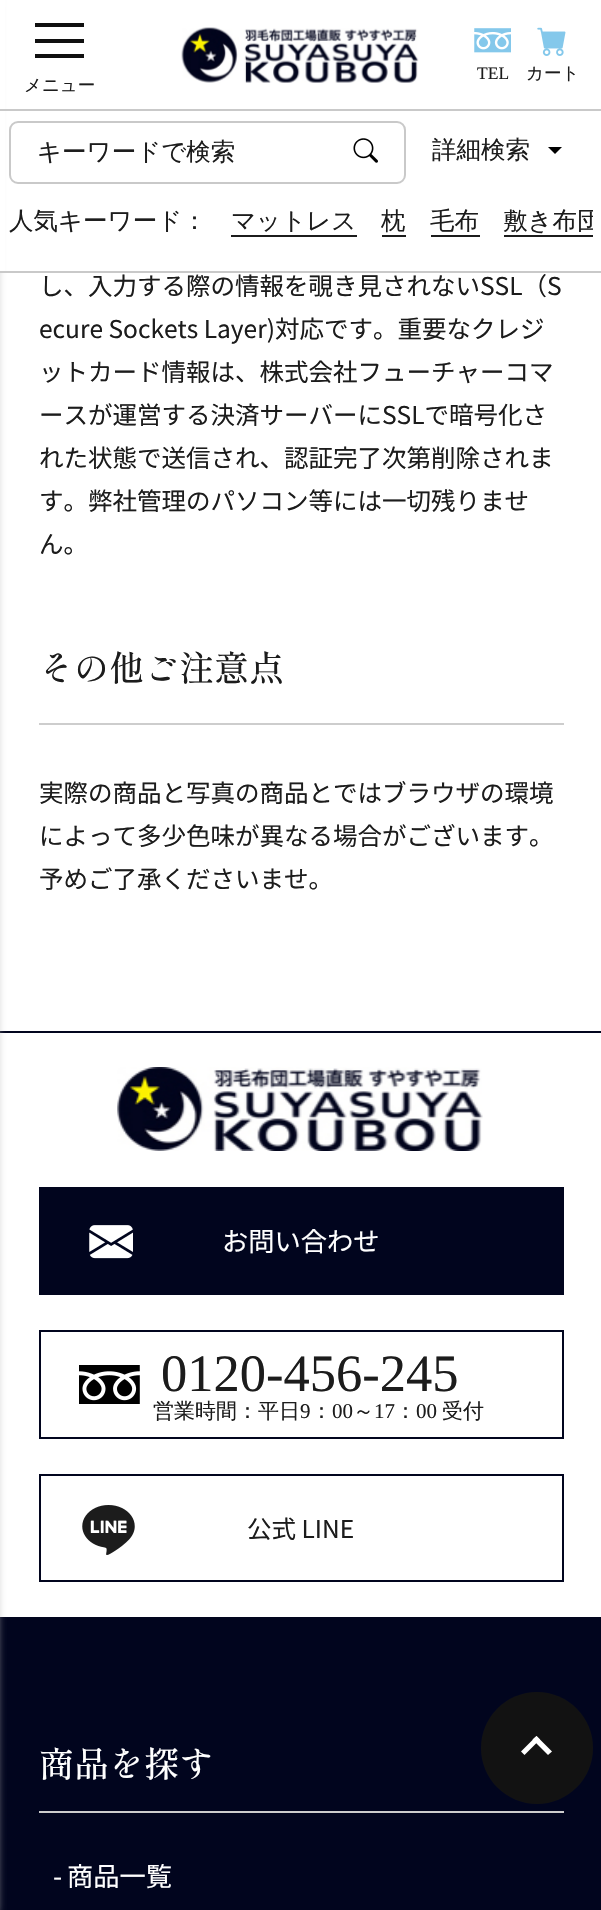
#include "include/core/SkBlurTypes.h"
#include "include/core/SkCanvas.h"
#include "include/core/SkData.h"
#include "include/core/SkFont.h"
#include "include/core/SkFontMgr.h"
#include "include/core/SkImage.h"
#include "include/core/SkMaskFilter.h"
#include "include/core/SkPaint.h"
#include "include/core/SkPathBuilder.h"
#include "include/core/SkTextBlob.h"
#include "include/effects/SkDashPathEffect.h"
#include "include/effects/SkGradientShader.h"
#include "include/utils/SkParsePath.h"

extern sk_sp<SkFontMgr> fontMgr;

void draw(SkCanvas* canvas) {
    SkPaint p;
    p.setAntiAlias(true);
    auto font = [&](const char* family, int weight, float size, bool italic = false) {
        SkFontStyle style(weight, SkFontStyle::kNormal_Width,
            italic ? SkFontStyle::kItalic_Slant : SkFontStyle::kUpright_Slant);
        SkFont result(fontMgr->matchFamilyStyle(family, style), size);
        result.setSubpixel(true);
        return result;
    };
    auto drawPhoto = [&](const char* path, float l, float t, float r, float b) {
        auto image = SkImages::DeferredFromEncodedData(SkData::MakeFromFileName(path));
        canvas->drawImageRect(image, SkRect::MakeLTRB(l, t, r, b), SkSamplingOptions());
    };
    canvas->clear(0xFFFFFFFF);
    p.setColor(0xFF01051E);
    canvas->drawRect(SkRect::MakeLTRB(0, 1031, 601, 1033), p);
    canvas->drawRect(SkRect::MakeLTRB(0, 1617, 601, 1910), p);
    p.setColor(0xFFB2B2B2);
    p.setMaskFilter(SkMaskFilter::MakeBlur(kNormal_SkBlurStyle, 4.5f));
    canvas->drawRect(SkRect::MakeLTRB(-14, 2, -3, 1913), p);
    p.setMaskFilter(nullptr);
    p.setColor(0xFFFFFFFF);
    canvas->drawRect(SkRect::MakeLTRB(0, 0, 5, 271), p);
    drawPhoto("media/1.png", 181, 27, 419, 83);
    drawPhoto("media/2.png", 474, 28, 511, 53);
    auto font1 = font("Liberation Serif", 400, 17.5f);
    p.setColor(0xFF1C1C1C);
    canvas->drawString("TEL", 477, 79, font1, p);
    drawPhoto("media/3.png", 537, 27, 566, 56);
    auto font2 = font("WenQuanYi Zen Hei", 500, 17.5f);
    canvas->drawString("カート", 526, 79, font2, p);
    {
        const struct { float l, t, r, b; SkColor color; } items[] = {
            {35, 23, 84, 27, 0xFF101010},
            {35, 39, 84, 43, 0xFF101010},
            {35, 54, 84, 58, 0xFF101010},
        };
        for (auto [l, t, r, b, color] : items) {
            p.setColor(color);
            canvas->drawRect(SkRect::MakeLTRB(l, t, r, b), p);
        }
    }
    p.setColor(0xFF1C1C1C);
    canvas->drawString("メニュー", 24, 91, font2, p);
    p.setColor(0xFFC9C9C9);
    canvas->drawRect(SkRect::MakeLTRB(0, 109, 601, 111), p);
    canvas->drawRect(SkRect::MakeLTRB(0, 271, 601, 273), p);
    p.setStyle(SkPaint::kStroke_Style);
    p.setStrokeWidth(2);
    canvas->drawRoundRect(SkRect::MakeLTRB(10, 122, 405, 183), 8, 8, p);
    auto font3 = font("WenQuanYi Zen Hei", 500, 24.5f);
    p.setStyle(SkPaint::kFill_Style);
    p.setColor(0xFF1C1C1C);
    canvas->drawString("キーワードで検索", 37, 160, font3, p);
    drawPhoto("media/4.png", 353, 138, 378, 163);
    canvas->drawString("詳細検索", 432, 158, font3, p);
    p.setColor(0xFF000000);
    canvas->drawPath(SkPathBuilder().moveTo(548, 147).lineTo(562, 147).lineTo(555, 154).close().detach(), p);
    p.setColor(0xFF1C1C1C);
    canvas->drawString("人気キーワード：", 9, 229, font3, p);
    canvas->drawString("マットレス", 231, 229, font3, p);
    canvas->drawRect(SkRect::MakeLTRB(231, 235, 357, 237), p);
    canvas->drawString("枕", 381, 229, font3, p);
    canvas->drawRect(SkRect::MakeLTRB(382, 235, 406, 237), p);
    canvas->drawString("毛布", 430, 229, font3, p);
    canvas->drawRect(SkRect::MakeLTRB(431, 235, 480, 237), p);
    canvas->save();
    canvas->clipRect(SkRect::MakeLTRB(9, 184, 593, 263));
    canvas->drawString("敷き布団", 503, 229, font3, p);
    canvas->restore();
    canvas->drawRect(SkRect::MakeLTRB(504, 235, 593, 237), p);
    auto font4 = font("Noto Sans JP", 400, 24.5f);
    {
        const struct { const char* s; float x, y; } items[] = {
            {"し、入力する際の情報を覗き見されないSSL（S", 39, 295},
            {"ecure Sockets Layer)対応です。重要なクレジ", 39, 338},
            {"ットカード情報は、株式会社フューチャーコマ", 39, 381},
            {"ースが運営する決済サーバーにSSLで暗号化さ", 39, 424},
            {"れた状態で送信され、認証完了次第削除されま", 39, 467},
            {"す。弊社管理のパソコン等には一切残りませ", 39, 510},
            {"ん。", 39, 553},
        };
        for (auto [s, x, y] : items) {
            canvas->drawString(s, x, y, font4, p);
        }
    }
    p.setColor(0xFFCDCDCD);
    canvas->drawRect(SkRect::MakeLTRB(39, 723, 564, 725), p);
    auto font5 = font("Shippori Mincho", 500, 35);
    p.setColor(0xFF1C1C1C);
    canvas->drawString("その他ご注意点", 39, 681, font5, p);
    {
        const struct { const char* s; float x, y; } items[] = {
            {"実際の商品と写真の商品とではブラウザの環境", 39, 802},
            {"によって多少色味が異なる場合がございます。", 39, 845},
            {"予めご了承くださいませ。", 39, 888},
        };
        for (auto [s, x, y] : items) {
            canvas->drawString(s, x, y, font4, p);
        }
    }
    drawPhoto("media/5.png", 117, 1067, 483, 1151);
    p.setStyle(SkPaint::kStroke_Style);
    p.setColor(0xFF01051E);
    canvas->drawRect(SkRect::MakeLTRB(40, 1188, 563, 1294), p);
    p.setStyle(SkPaint::kFill_Style);
    canvas->drawRect(SkRect::MakeLTRB(41, 1189, 562, 1293), p);
    drawPhoto("media/6.png", 89, 1225, 133, 1259);
    auto font6 = font("Noto Sans JP", 400, 26.25f);
    p.setColor(0xFFFFFFFF);
    canvas->drawString("お問い合わせ", 222, 1251, font6, p);
    p.setStyle(SkPaint::kStroke_Style);
    p.setColor(0xFF01051E);
    canvas->drawRect(SkRect::MakeLTRB(40, 1331, 563, 1438), p);
    drawPhoto("media/7.png", 79, 1365, 140, 1404);
    auto font7 = font("Liberation Serif", 400, 52.5f);
    p.setStyle(SkPaint::kFill_Style);
    p.setColor(0xFF1C1C1C);
    canvas->drawString("0120-456-245", 161, 1391, font7, p);
    auto font8 = font("WenQuanYi Zen Hei", 500, 21);
    canvas->drawString("営業時間：平日", 153, 1418, font8, p);
    auto font9 = font("Liberation Serif", 400, 21);
    canvas->drawString("9", 300, 1418, font9, p);
    canvas->drawString("：", 311, 1418, font8, p);
    canvas->drawString("00", 332, 1418, font9, p);
    canvas->drawString("～", 353, 1418, font8, p);
    canvas->drawString("17", 374, 1418, font9, p);
    canvas->drawString("：", 395, 1418, font8, p);
    canvas->drawString("00", 416, 1418, font9, p);
    canvas->drawString("受付", 442, 1418, font8, p);
    p.setStyle(SkPaint::kStroke_Style);
    p.setColor(0xFF01051E);
    canvas->drawRect(SkRect::MakeLTRB(40, 1475, 563, 1581), p);
    drawPhoto("media/8.png", 82, 1505, 135, 1555);
    p.setStyle(SkPaint::kFill_Style);
    p.setColor(0xFF1C1C1C);
    canvas->drawString("公式 LINE", 247, 1538, font4, p);
    p.setColor(0xFFCDCDCD);
    canvas->drawRect(SkRect::MakeLTRB(39, 1811, 564, 1813), p);
    p.setColor(0xFFFFFFFF);
    canvas->drawString("商品を探す", 39, 1777, font5, p);
    canvas->drawString("-", 53, 1886, font6, p);
    canvas->drawString("商品一覧", 67, 1886, font6, p);
    p.setColor(0xFF121212);
    canvas->drawCircle(537, 1748, 56, p);
    p.setColor(0xFFFFFFFF);
    canvas->drawPath(SkPathBuilder().moveTo(536.5f, 1736).lineTo(552, 1751.5f).lineTo(548, 1755).lineTo(532.5f, 1739.5f).close().detach(), p);
    canvas->drawPath(SkPathBuilder().moveTo(536.5f, 1736).lineTo(540, 1739.5f).lineTo(524.5f, 1755).lineTo(521, 1751.5f).close().detach(), p);
}
